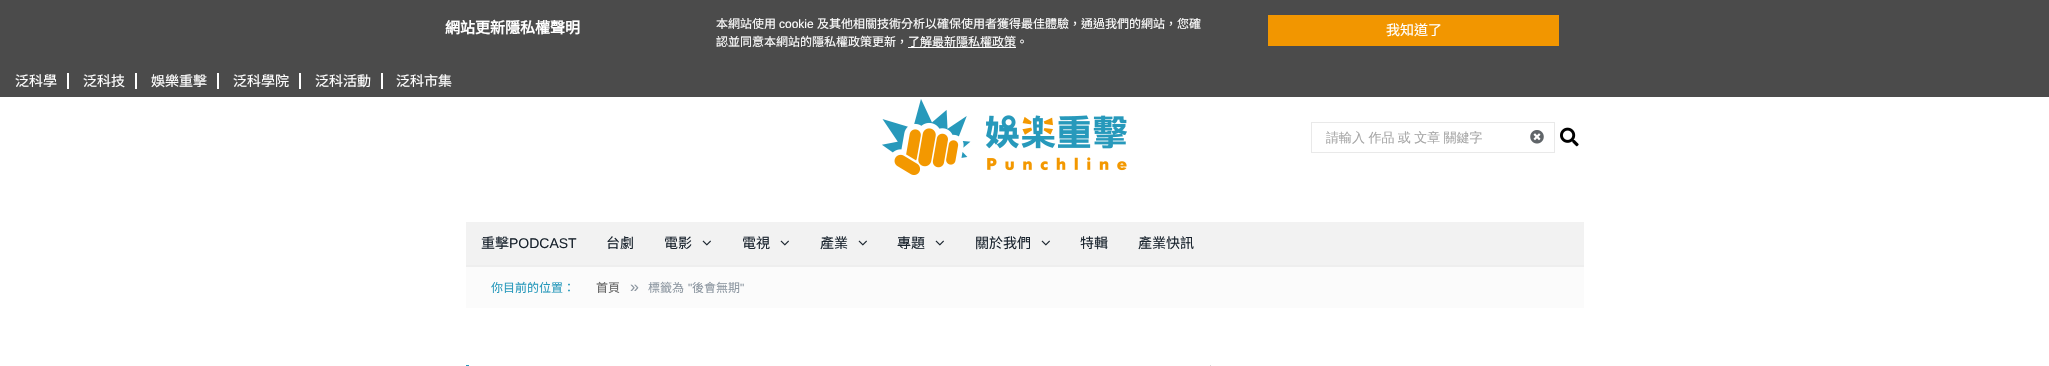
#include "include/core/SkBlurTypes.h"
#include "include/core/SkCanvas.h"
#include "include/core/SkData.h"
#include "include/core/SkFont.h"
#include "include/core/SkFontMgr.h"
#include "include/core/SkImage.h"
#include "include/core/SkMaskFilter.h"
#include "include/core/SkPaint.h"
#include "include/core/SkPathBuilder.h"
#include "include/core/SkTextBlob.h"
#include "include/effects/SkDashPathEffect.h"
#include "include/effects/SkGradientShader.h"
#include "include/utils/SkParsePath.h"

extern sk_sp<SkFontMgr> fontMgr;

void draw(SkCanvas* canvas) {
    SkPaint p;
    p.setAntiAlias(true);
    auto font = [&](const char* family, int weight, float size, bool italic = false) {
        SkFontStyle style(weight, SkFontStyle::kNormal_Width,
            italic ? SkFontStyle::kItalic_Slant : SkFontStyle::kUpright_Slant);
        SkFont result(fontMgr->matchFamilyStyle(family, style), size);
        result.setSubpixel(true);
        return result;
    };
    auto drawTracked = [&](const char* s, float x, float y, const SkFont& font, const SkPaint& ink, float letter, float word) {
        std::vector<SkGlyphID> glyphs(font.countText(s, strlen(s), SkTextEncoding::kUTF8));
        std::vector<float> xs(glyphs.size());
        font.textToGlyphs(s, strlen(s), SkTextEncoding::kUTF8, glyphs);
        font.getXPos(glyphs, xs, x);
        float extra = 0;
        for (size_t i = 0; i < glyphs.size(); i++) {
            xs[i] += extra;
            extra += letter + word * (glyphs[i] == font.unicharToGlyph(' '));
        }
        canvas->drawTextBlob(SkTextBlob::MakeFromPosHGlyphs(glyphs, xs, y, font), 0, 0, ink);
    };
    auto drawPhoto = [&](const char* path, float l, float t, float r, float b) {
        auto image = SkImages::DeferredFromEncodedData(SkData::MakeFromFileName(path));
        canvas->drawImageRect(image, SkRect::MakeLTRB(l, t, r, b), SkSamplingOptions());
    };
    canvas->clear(0xFFFFFFFF);
    p.setColor(0xFF4B4B4B);
    canvas->drawRect(SkRect::MakeLTRB(0, 0, 2049, 97), p);
    auto font1 = font("Noto Sans CJK TC", 700, 15);
    p.setColor(0xFFFFFFFF);
    canvas->drawString("網站更新隱私權聲明", 445, 33, font1, p);
    auto font2 = font("Noto Sans CJK TC", 400, 12);
    canvas->drawString("本網站使用", 716, 28, font2, p);
    auto font3 = font("Liberation Sans", 400, 12);
    canvas->drawString("cookie", 779, 28, font3, p);
    canvas->drawString("及其他相關技術分析以確保使用者獲得最佳體驗，通過我們的網站，您確", 817, 28, font2, p);
    canvas->drawString("認並同意本網站的隱私權政策更新，了解最新隱私權政策。", 716, 46, font2, p);
    canvas->drawRect(SkRect::MakeLTRB(908, 47, 1016, 48), p);
    p.setColor(0xFFF29600);
    canvas->drawRect(SkRect::MakeLTRB(1268, 15, 1559, 46), p);
    auto font4 = font("Noto Sans CJK TC", 400, 14);
    p.setColor(0xFFFFFFFF);
    canvas->drawString("我知道了", 1386, 35, font4, p);
    canvas->drawString("泛科學", 15, 86, font4, p);
    canvas->drawRect(SkRect::MakeLTRB(67, 73, 69, 89), p);
    canvas->drawString("泛科技", 83, 86, font4, p);
    canvas->drawRect(SkRect::MakeLTRB(135, 73, 137, 89), p);
    canvas->drawString("娛樂重擊", 151, 86, font4, p);
    canvas->drawRect(SkRect::MakeLTRB(217, 73, 219, 89), p);
    canvas->drawString("泛科學院", 233, 86, font4, p);
    canvas->drawRect(SkRect::MakeLTRB(299, 73, 301, 89), p);
    canvas->drawString("泛科活動", 315, 86, font4, p);
    canvas->drawRect(SkRect::MakeLTRB(381, 73, 383, 89), p);
    canvas->drawString("泛科市集", 396, 86, font4, p);
    drawPhoto("media/1.png", 882, 99, 1127, 175);
    p.setStyle(SkPaint::kStroke_Style);
    p.setStrokeWidth(1);
    p.setColor(0xFFE9E9E9);
    canvas->drawRect(SkRect::MakeLTRB(1311.5f, 122.5f, 1554.5f, 152.5f), p);
    auto font5 = font("WenQuanYi Zen Hei", 500, 13);
    p.setStyle(SkPaint::kFill_Style);
    p.setColor(0xFFA6A6A6);
    drawTracked("請輸入 作品 或 文章 關鍵字", 1326, 142, font5, p, 0, -0.5f);
    drawPhoto("media/2.png", 1530, 130, 1544, 144);
    drawPhoto("media/3.png", 1560, 127, 1579, 147);
    p.setColor(0xFFF2F2F2);
    canvas->drawRect(SkRect::MakeLTRB(466, 222, 1584, 265), p);
    p.setColor(0xFFEEEEEE);
    canvas->drawRect(SkRect::MakeLTRB(466, 265, 1584, 267), p);
    p.setColor(0xFF19232D);
    canvas->drawString("重擊", 481, 248, font4, p);
    auto font6 = font("Liberation Sans", 400, 14);
    canvas->drawString("PODCAST", 509, 248, font6, p);
    canvas->drawString("台劇", 606, 248, font4, p);
    canvas->drawString("電影", 664, 248, font4, p);
    drawPhoto("media/4.png", 702, 240, 711, 246);
    canvas->drawString("電視", 742, 248, font4, p);
    drawPhoto("media/4.png", 780, 240, 789, 246);
    canvas->drawString("產業", 820, 248, font4, p);
    drawPhoto("media/4.png", 858, 240, 867, 246);
    canvas->drawString("專題", 897, 248, font4, p);
    drawPhoto("media/4.png", 935, 240, 944, 246);
    canvas->drawString("關於我們", 975, 248, font4, p);
    drawPhoto("media/4.png", 1041, 240, 1050, 246);
    canvas->drawString("特輯", 1080, 248, font4, p);
    canvas->drawString("產業快訊", 1138, 248, font4, p);
    p.setColor(0xFFFBFBFB);
    canvas->drawRect(SkRect::MakeLTRB(466, 267, 1584, 308), p);
    p.setColor(0xFF2799BB);
    canvas->drawString("你目前的位置：", 491, 292, font2, p);
    p.setColor(0xFF656565);
    canvas->drawString("首頁", 596, 292, font2, p);
    auto font7 = font("Liberation Sans", 400, 16);
    p.setColor(0xFF8D97A1);
    canvas->drawString("»", 630, 292, font7, p);
    canvas->drawString("標籤為", 648, 292, font2, p);
    canvas->drawString("\"", 688, 292, font3, p);
    canvas->drawString("後會無期", 692, 292, font2, p);
    canvas->drawString("\"", 740, 292, font3, p);
    p.setColor(0xFF2799BB);
    canvas->drawRect(SkRect::MakeLTRB(466, 365, 469, 366), p);
    p.setColor(0xFFD9D9D9);
    canvas->drawRect(SkRect::MakeLTRB(1210, 365, 1211, 366), p);
}
